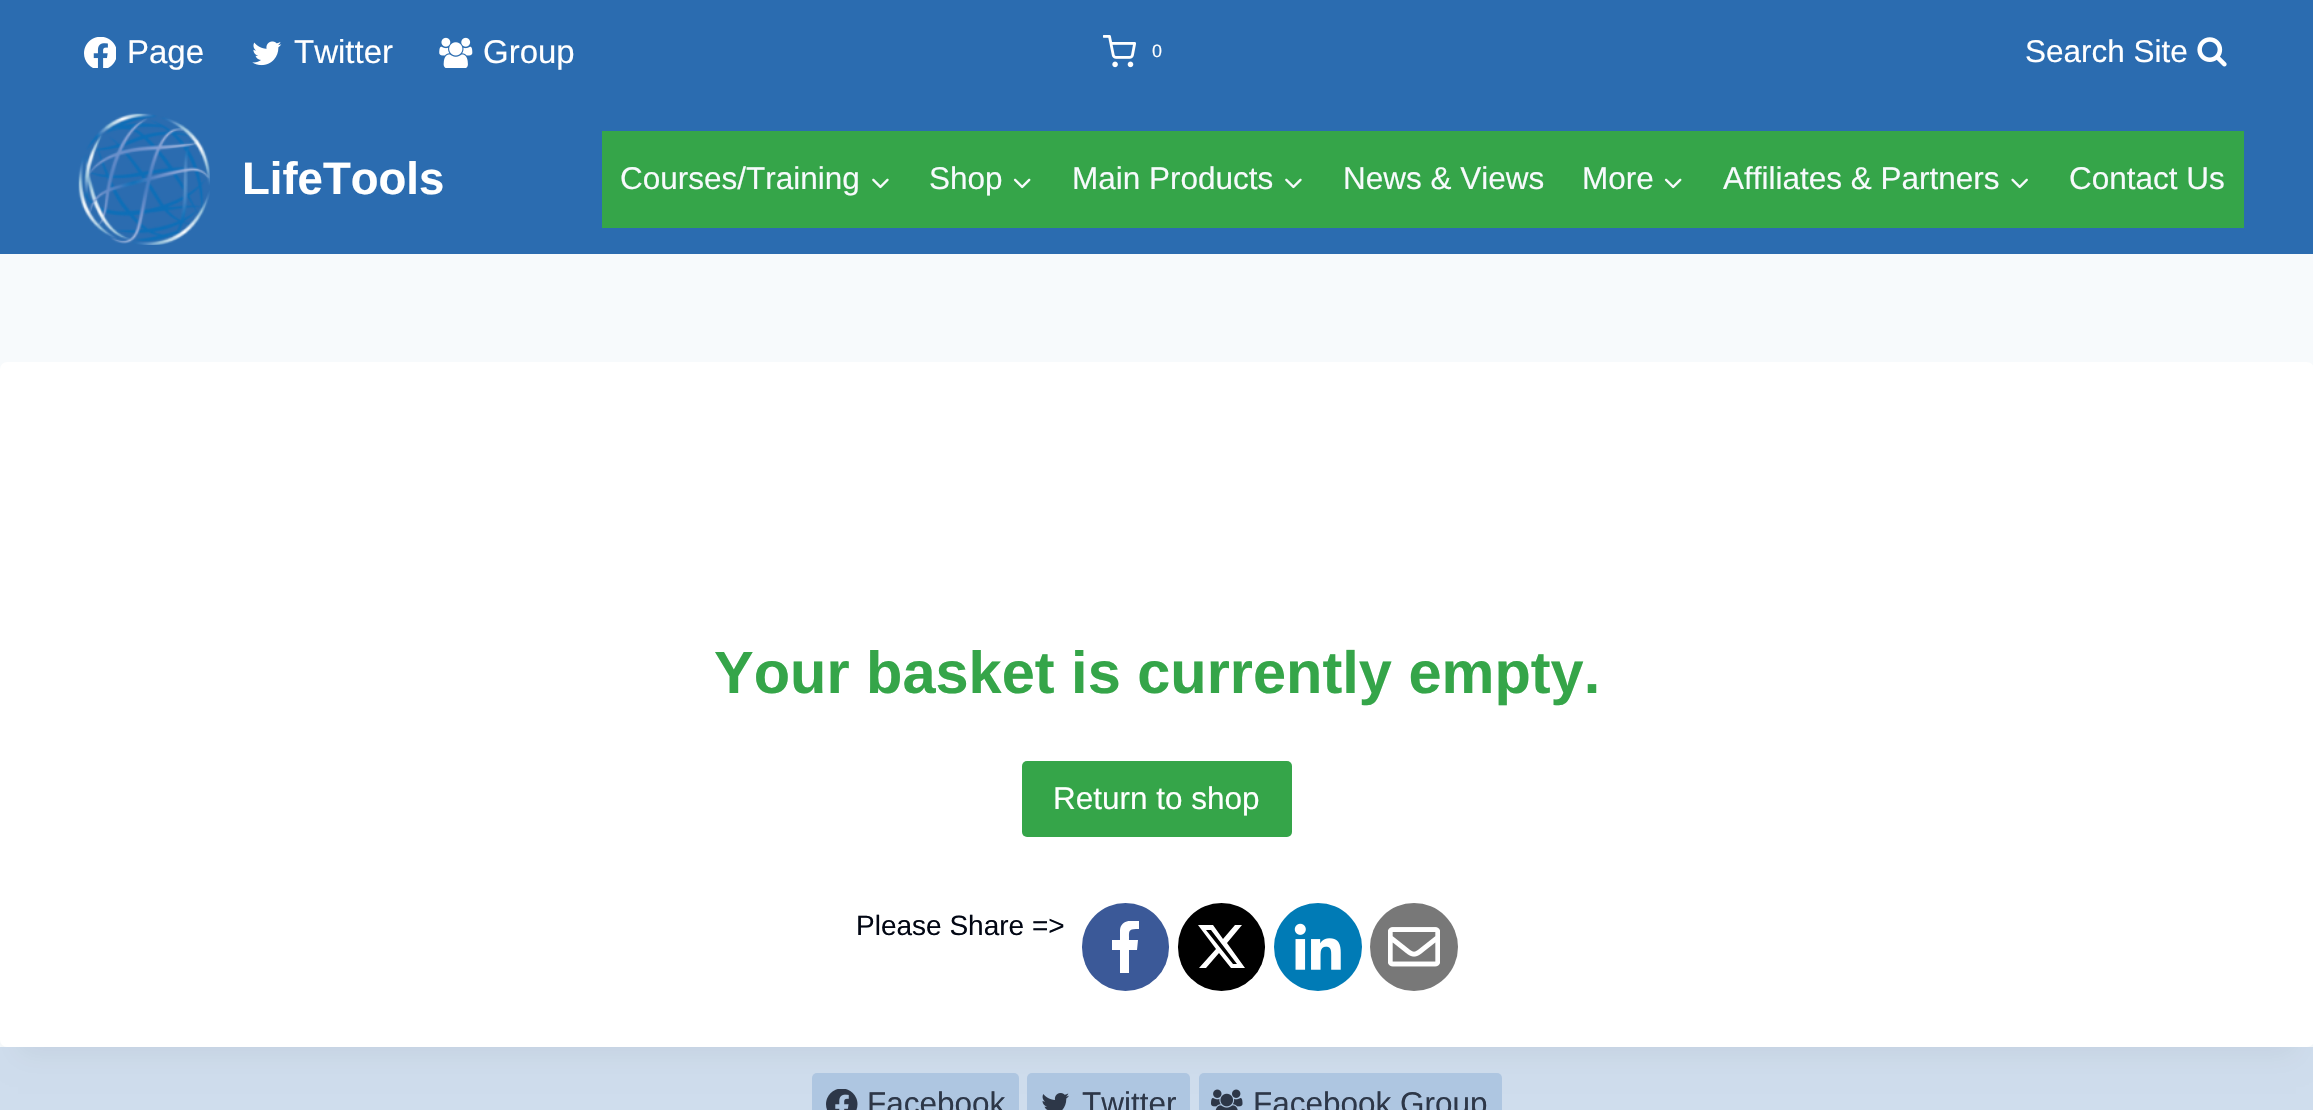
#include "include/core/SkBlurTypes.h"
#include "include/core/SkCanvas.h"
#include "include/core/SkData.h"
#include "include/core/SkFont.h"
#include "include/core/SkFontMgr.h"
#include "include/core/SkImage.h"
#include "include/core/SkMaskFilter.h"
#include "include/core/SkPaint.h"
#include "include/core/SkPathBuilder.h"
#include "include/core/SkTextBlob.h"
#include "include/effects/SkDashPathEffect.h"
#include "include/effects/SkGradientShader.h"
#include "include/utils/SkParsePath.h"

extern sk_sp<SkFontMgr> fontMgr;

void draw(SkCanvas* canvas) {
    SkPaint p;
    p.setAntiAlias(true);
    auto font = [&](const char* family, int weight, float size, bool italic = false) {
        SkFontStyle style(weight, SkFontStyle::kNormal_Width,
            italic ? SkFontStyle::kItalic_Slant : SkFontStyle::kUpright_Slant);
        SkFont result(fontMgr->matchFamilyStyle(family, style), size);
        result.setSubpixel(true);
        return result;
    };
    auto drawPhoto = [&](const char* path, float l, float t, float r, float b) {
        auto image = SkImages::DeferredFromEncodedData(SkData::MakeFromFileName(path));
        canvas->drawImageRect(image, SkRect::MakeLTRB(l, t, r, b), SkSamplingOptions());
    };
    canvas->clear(0xFFF7FAFC);
    p.setColor(0xFF2B6CB0);
    canvas->drawRect(SkRect::MakeLTRB(0, 0, 2313, 254), p);
    drawPhoto("media/1.png", 84, 37, 116, 68);
    auto font1 = font("Liberation Sans", 400, 33);
    p.setColor(0xFFFFFFFF);
    canvas->drawString("Page", 127, 63, font1, p);
    drawPhoto("media/2.png", 252, 41, 282, 66);
    canvas->drawString("Twitter", 294, 63, font1, p);
    drawPhoto("media/3.png", 439, 37, 473, 68);
    canvas->drawString("Group", 483, 63, font1, p);
    drawPhoto("media/4.png", 1103, 35, 1136, 68);
    auto font2 = font("Liberation Sans", 400, 18);
    canvas->drawString("0", 1152, 57, font2, p);
    auto font3 = font("Liberation Sans", 400, 31.5f);
    canvas->drawString("Search Site", 2025, 62, font3, p);
    drawPhoto("media/5.png", 2197, 37, 2227, 67);
    drawPhoto("media/6.png", 78, 113, 210, 245);
    auto font4 = font("Liberation Sans", 700, 45.5f);
    canvas->drawString("LifeTools", 242, 194, font4, p);
    p.setColor(0xFF35A549);
    canvas->drawRect(SkRect::MakeLTRB(602, 131, 2244, 228), p);
    p.setColor(0xFFF7FAFC);
    canvas->drawString("Courses/Training", 620, 189, font3, p);
    drawPhoto("media/7.png", 872, 178, 889, 189);
    canvas->drawString("Shop", 929, 189, font3, p);
    drawPhoto("media/8.png", 1013, 178, 1031, 189);
    canvas->drawString("Main Products", 1072, 189, font3, p);
    drawPhoto("media/7.png", 1285, 178, 1302, 189);
    canvas->drawString("News & Views", 1343, 189, font3, p);
    canvas->drawString("More", 1582, 189, font3, p);
    drawPhoto("media/8.png", 1664, 178, 1682, 189);
    canvas->drawString("Affiliates & Partners", 1723, 189, font3, p);
    drawPhoto("media/9.png", 2011, 178, 2028, 189);
    canvas->drawString("Contact Us", 2069, 189, font3, p);
    p.setColor(0xFFCFDDED);
    canvas->drawRect(SkRect::MakeLTRB(0, 1047, 2313, 1110), p);
    p.setColor(0x0D000000);
    p.setMaskFilter(SkMaskFilter::MakeBlur(kNormal_SkBlurStyle, 13));
    canvas->drawRect(SkRect::MakeLTRB(18, 406, 2296, 1055), p);
    p.setMaskFilter(nullptr);
    p.setColor(0xFFFFFFFF);
    canvas->drawRoundRect(SkRect::MakeLTRB(0, 362, 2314, 1047), 7, 7, p);
    auto font5 = font("Liberation Sans", 700, 59.5f);
    p.setColor(0xFF35A549);
    canvas->drawString("Your basket is currently empty.", 714, 693, font5, p);
    canvas->drawRoundRect(SkRect::MakeLTRB(1022, 761, 1292, 837), 5, 5, p);
    p.setColor(0xFFFFFFFF);
    canvas->drawString("Return to shop", 1053, 809, font3, p);
    auto font6 = font("Liberation Sans", 400, 28);
    p.setColor(0xFF020714);
    canvas->drawString("Please Share =>", 856, 935, font6, p);
    p.setColor(0xFF3B5998);
    canvas->drawRoundRect(SkRect::MakeLTRB(1082, 903, 1169, 991), 43.5f, 43.5f, p);
    canvas->save();
    canvas->clipRect(SkRect::MakeLTRB(1099, 921, 1152, 973));
    p.setColor(0xFFFFFFFF);
    canvas->drawPath(SkPathBuilder().moveTo(1120, 973).lineTo(1120, 950).lineTo(1112, 950).lineTo(1112, 940).lineTo(1120, 940).lineTo(1120, 930).cubicTo(1121, 920, 1131, 920, 1139, 921).lineTo(1139, 929).cubicTo(1128, 929, 1129, 930, 1129, 940).lineTo(1138, 940).lineTo(1137, 950).lineTo(1129, 950).lineTo(1129, 973).detach(), p);
    canvas->restore();
    p.setColor(0xFF000000);
    canvas->drawRoundRect(SkRect::MakeLTRB(1178, 903, 1265, 991), 43.5f, 43.5f, p);
    p.setColor(0xFFFFFFFF);
    canvas->drawPath(SkPathBuilder().moveTo(1235, 925).lineTo(1242, 925).lineTo(1227, 943).lineTo(1245, 968).lineTo(1231, 968).lineTo(1219, 953).lineTo(1206, 968).lineTo(1199, 968).lineTo(1216, 949).lineTo(1198, 925).lineTo(1213, 925).lineTo(1223, 939).close().moveTo(1233, 964).lineTo(1237, 964).lineTo(1211, 930).lineTo(1206, 930).close().detach(), p);
    p.setColor(0xFF007BB6);
    canvas->drawCircle(1318, 947, 44, p);
    drawPhoto("media/10.png", 1294, 923, 1341, 970);
    p.setColor(0xFF787878);
    canvas->drawCircle(1414, 947, 44, p);
    drawPhoto("media/11.png", 1388, 927, 1440, 967);
    p.setColor(0xFFAEC6E1);
    canvas->drawRoundRect(SkRect::MakeLTRB(812, 1073, 1019, 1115), 5, 5, p);
    drawPhoto("media/12.png", 826, 1089, 858, 1110);
    p.setColor(0xFF2D3748);
    canvas->drawString("Facebook", 867, 1114, font3, p);
    p.setColor(0xFFAEC6E1);
    canvas->drawRoundRect(SkRect::MakeLTRB(1027, 1073, 1190, 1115), 5, 5, p);
    drawPhoto("media/13.png", 1042, 1093, 1069, 1110);
    p.setColor(0xFF2D3748);
    canvas->drawString("Twitter", 1082, 1114, font3, p);
    p.setColor(0xFFAEC6E1);
    canvas->drawRoundRect(SkRect::MakeLTRB(1199, 1073, 1502, 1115), 5, 5, p);
    drawPhoto("media/14.png", 1211, 1089, 1243, 1110);
    p.setColor(0xFF2D3748);
    canvas->drawString("Facebook Group", 1253, 1114, font3, p);
}
